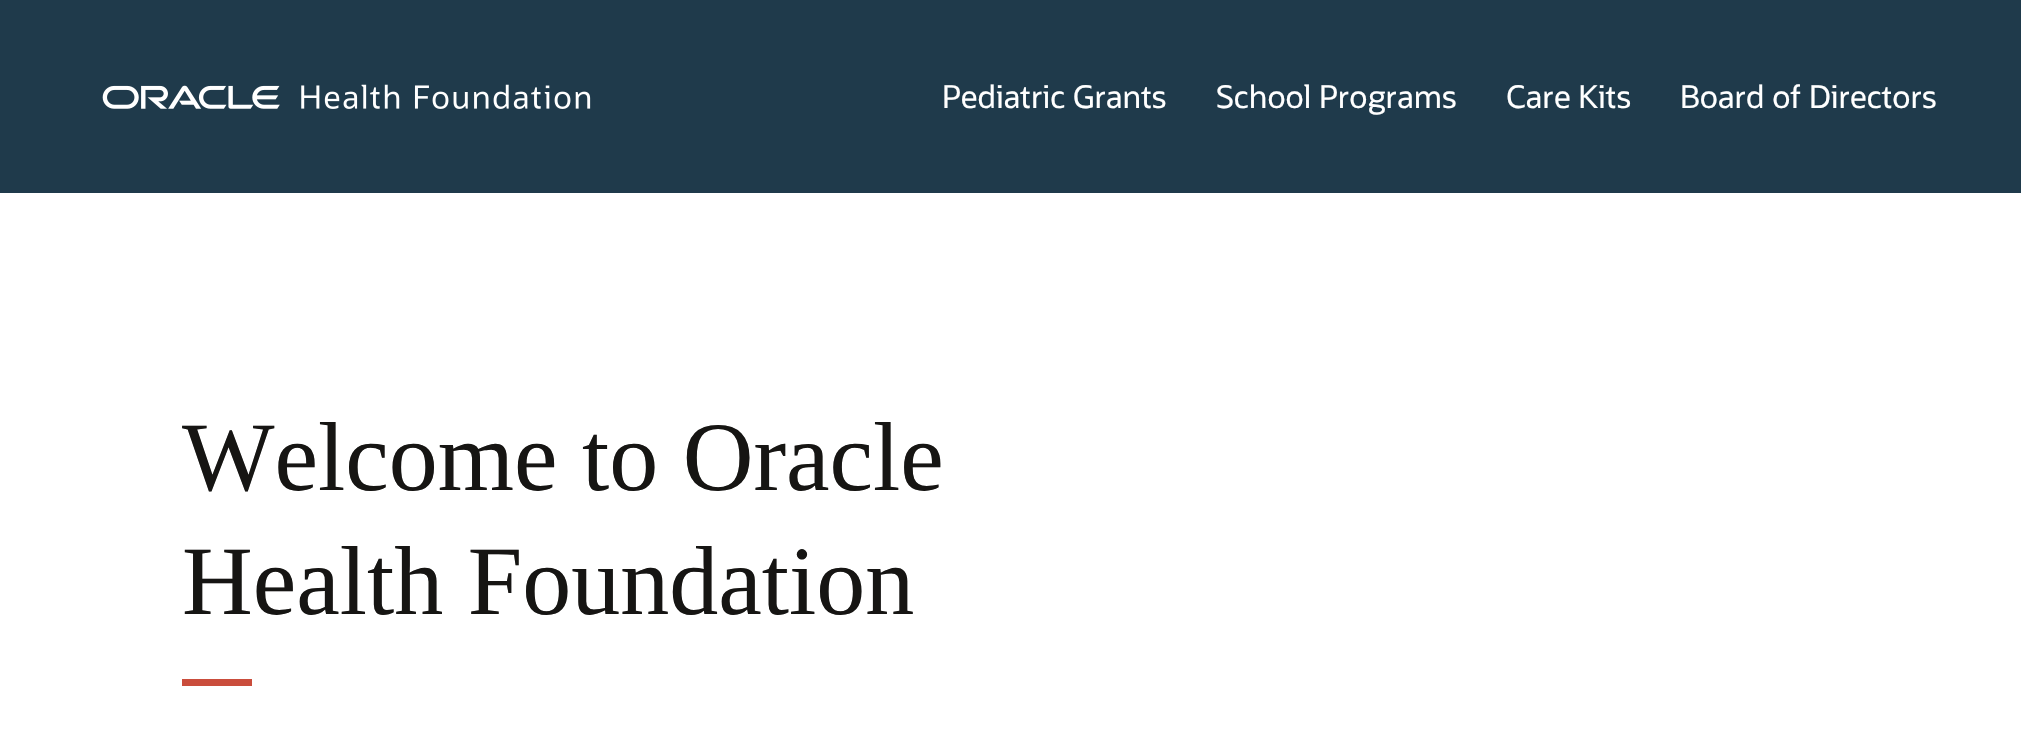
#include "include/core/SkBlurTypes.h"
#include "include/core/SkCanvas.h"
#include "include/core/SkData.h"
#include "include/core/SkFont.h"
#include "include/core/SkFontMgr.h"
#include "include/core/SkImage.h"
#include "include/core/SkMaskFilter.h"
#include "include/core/SkPaint.h"
#include "include/core/SkPathBuilder.h"
#include "include/core/SkTextBlob.h"
#include "include/effects/SkDashPathEffect.h"
#include "include/effects/SkGradientShader.h"
#include "include/utils/SkParsePath.h"

extern sk_sp<SkFontMgr> fontMgr;

void draw(SkCanvas* canvas) {
    SkPaint p;
    p.setAntiAlias(true);
    auto font = [&](const char* family, int weight, float size, bool italic = false) {
        SkFontStyle style(weight, SkFontStyle::kNormal_Width,
            italic ? SkFontStyle::kItalic_Slant : SkFontStyle::kUpright_Slant);
        SkFont result(fontMgr->matchFamilyStyle(family, style), size);
        result.setSubpixel(true);
        return result;
    };
    auto drawPhoto = [&](const char* path, float l, float t, float r, float b) {
        auto image = SkImages::DeferredFromEncodedData(SkData::MakeFromFileName(path));
        canvas->drawImageRect(image, SkRect::MakeLTRB(l, t, r, b), SkSamplingOptions());
    };
    canvas->clear(0xFFFFFFFF);
    p.setColor(0xFF1F3A4B);
    canvas->drawRect(SkRect::MakeLTRB(0, 0, 2021, 193), p);
    drawPhoto("media/1.png", 102, 84, 591, 109);
    auto font1 = font("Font", 400, 31.25f);
    p.setColor(0xFFFFFFFF);
    {
        const struct { const char* s; float x, y; } items[] = {
            {"Pediatric Grants", 942, 108},
            {"School Programs", 1216, 108},
            {"Care Kits", 1506, 108},
            {"Board of Directors", 1680, 108},
        };
        for (auto [s, x, y] : items) {
            canvas->drawString(s, x, y, font1, p);
        }
    }
    auto font2 = font("Liberation Serif", 400, 98);
    p.setColor(0xFF161513);
    canvas->drawString("Welcome to Oracle", 182, 490, font2, p);
    canvas->drawString("Health Foundation", 182, 614, font2, p);
    p.setColor(0xFFCA4D3C);
    canvas->drawRect(SkRect::MakeLTRB(182, 679, 252, 686), p);
}
